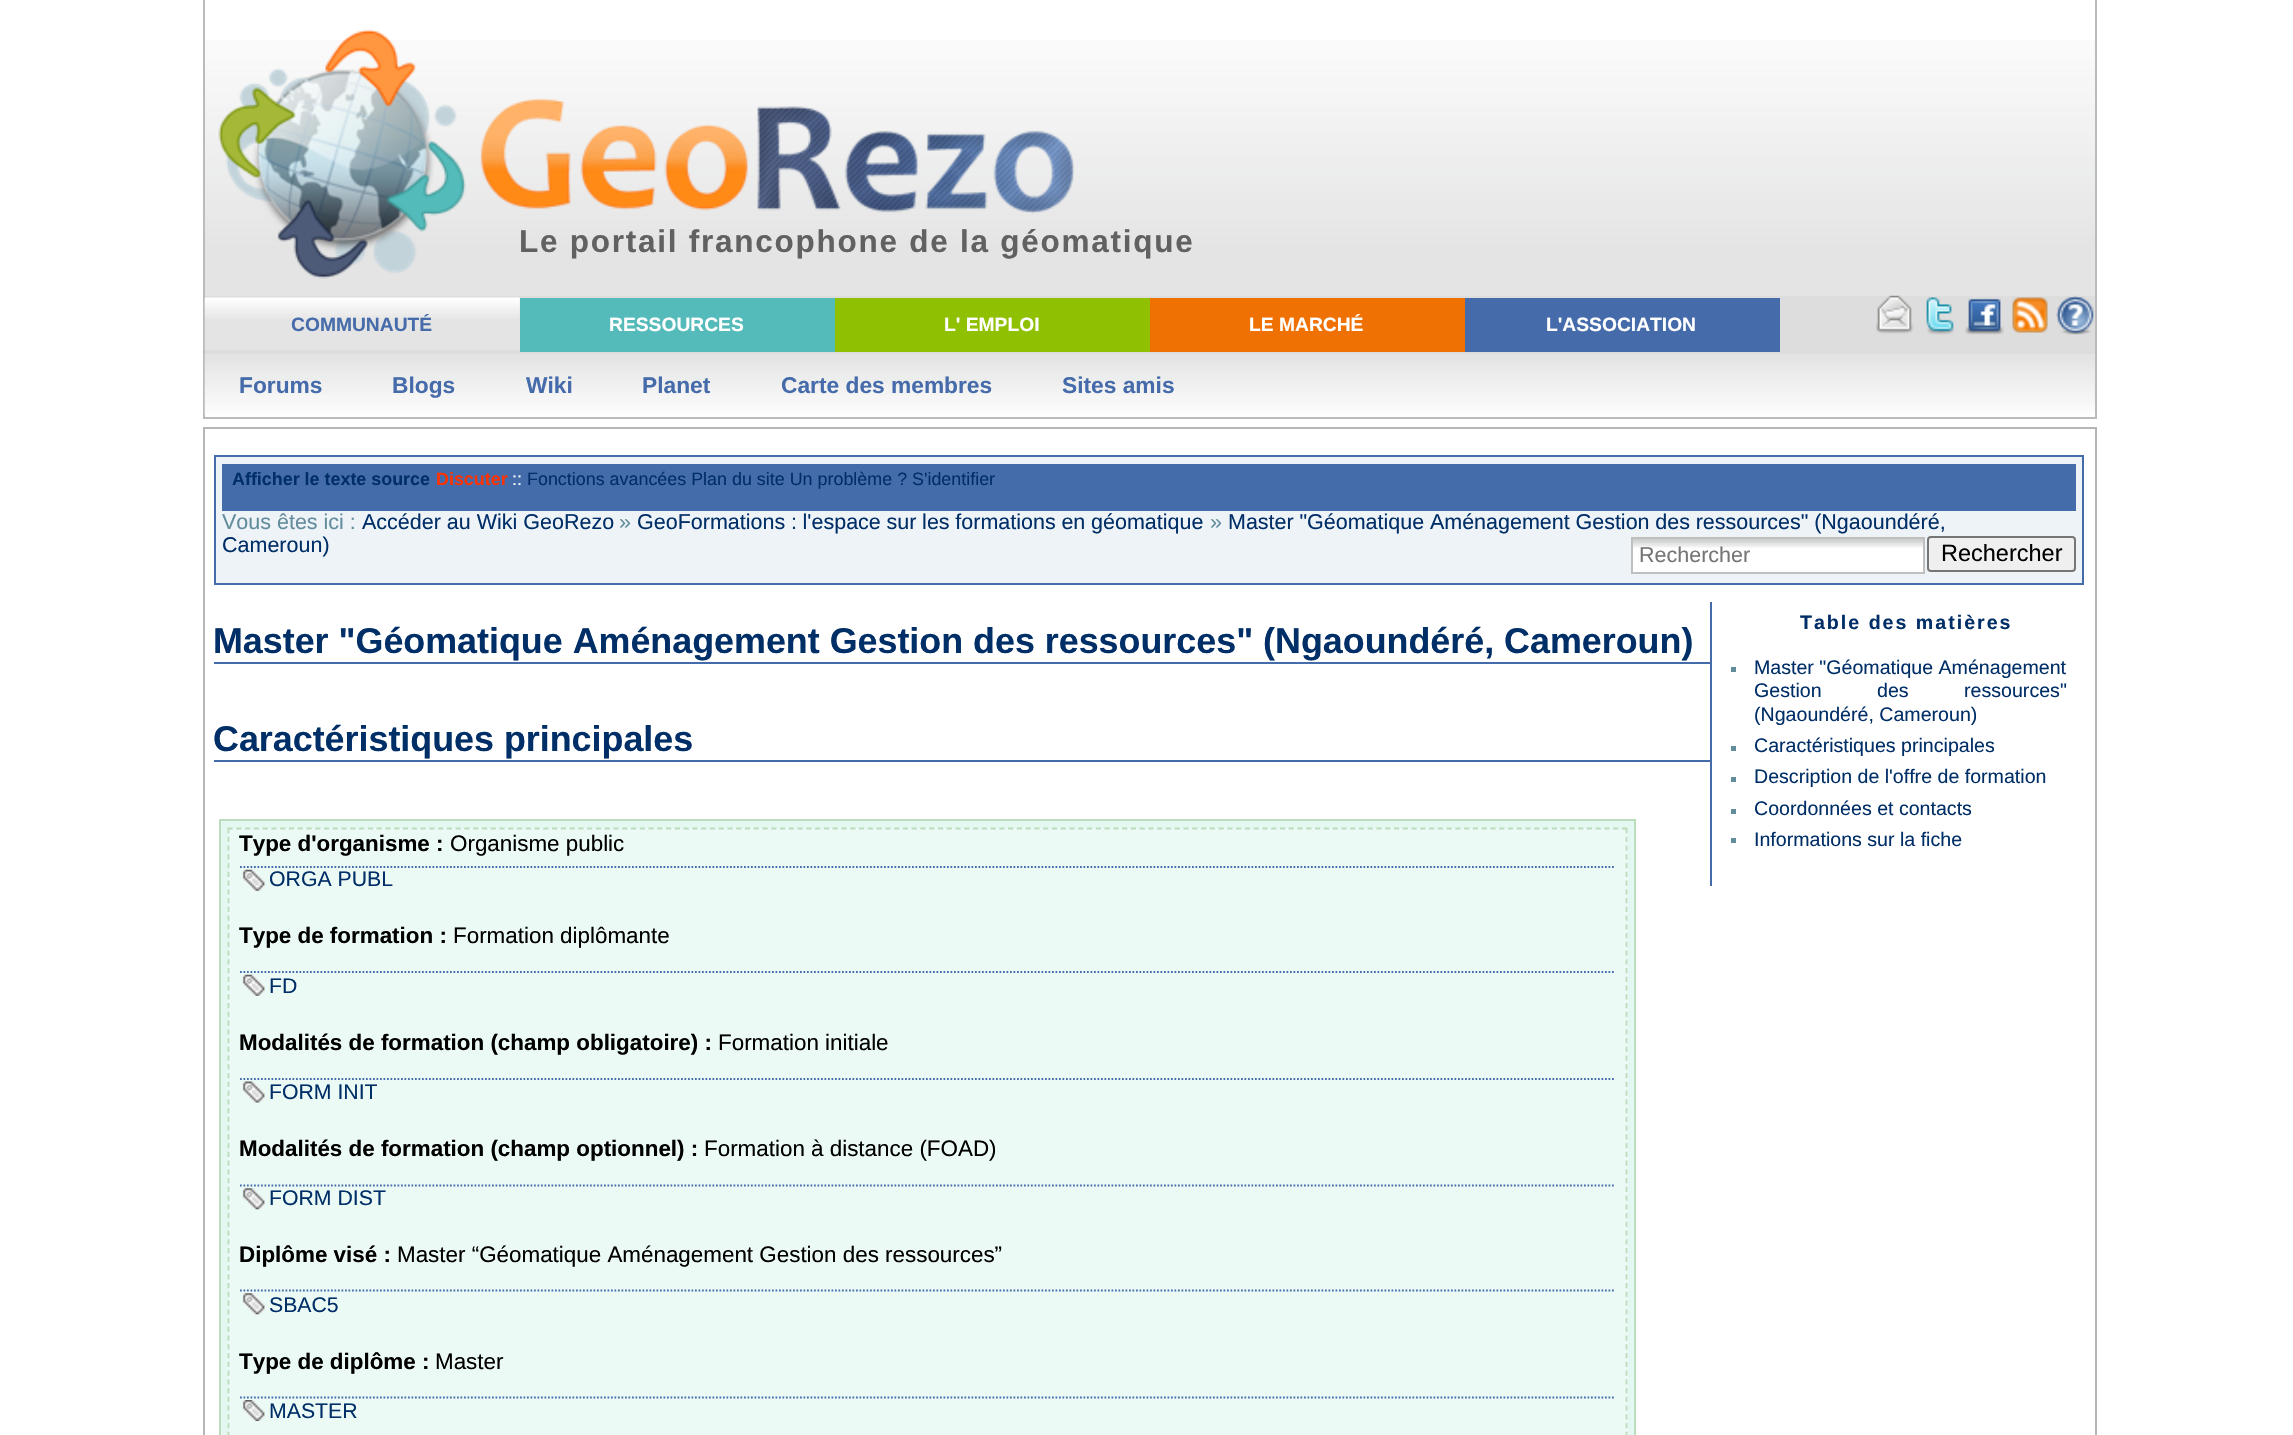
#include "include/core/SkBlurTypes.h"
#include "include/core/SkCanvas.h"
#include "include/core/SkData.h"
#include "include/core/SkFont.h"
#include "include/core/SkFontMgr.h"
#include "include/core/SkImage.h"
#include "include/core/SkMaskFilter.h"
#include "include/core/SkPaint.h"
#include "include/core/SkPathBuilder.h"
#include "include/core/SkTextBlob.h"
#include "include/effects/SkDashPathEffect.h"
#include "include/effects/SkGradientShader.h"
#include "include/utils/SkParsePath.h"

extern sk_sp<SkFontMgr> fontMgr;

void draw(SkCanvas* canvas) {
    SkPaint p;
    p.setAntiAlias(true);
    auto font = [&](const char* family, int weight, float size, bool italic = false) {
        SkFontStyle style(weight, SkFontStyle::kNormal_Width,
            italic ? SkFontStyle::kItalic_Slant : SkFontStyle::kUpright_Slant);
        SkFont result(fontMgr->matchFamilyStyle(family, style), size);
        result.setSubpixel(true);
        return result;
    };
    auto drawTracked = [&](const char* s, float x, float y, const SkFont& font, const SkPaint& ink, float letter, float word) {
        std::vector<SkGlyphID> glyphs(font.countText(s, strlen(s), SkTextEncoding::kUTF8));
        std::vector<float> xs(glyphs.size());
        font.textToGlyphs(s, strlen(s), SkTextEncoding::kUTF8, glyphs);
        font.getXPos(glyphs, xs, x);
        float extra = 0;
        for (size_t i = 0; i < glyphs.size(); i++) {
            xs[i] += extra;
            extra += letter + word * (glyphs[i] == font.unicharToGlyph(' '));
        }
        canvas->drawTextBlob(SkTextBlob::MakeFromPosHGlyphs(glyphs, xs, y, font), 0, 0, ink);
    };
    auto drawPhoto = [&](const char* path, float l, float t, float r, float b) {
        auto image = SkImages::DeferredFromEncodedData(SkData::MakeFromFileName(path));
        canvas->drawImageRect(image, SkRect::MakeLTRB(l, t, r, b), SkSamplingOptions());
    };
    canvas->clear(0xFFFFFFFF);
    drawPhoto("media/1.png", 205, 40, 2095, 403);
    {
        const struct { float l, t, r, b; SkColor color; } items[] = {
            {2095, 0, 2097, 418, 0xFFBBBBBB},
            {203, 417, 2097, 419, 0xFFBBBBBB},
            {203, 0, 205, 418, 0xFFBBBBBB},
        };
        for (auto [l, t, r, b, color] : items) {
            p.setColor(color);
            canvas->drawRect(SkRect::MakeLTRB(l, t, r, b), p);
        }
    }
    drawPhoto("media/2.png", 218, 29, 1075, 279);
    auto font1 = font("Liberation Sans", 700, 31.5f);
    p.setColor(0xFF616161);
    drawTracked("Le portail francophone de la géomatique", 519, 252, font1, p, 1.75f, 0);
    drawPhoto("media/9.png", 204, 353, 2095, 415);
    p.setColor(0xFFDDDDDD);
    canvas->drawRect(SkRect::MakeLTRB(205, 296, 2095, 354), p);
    drawPhoto("media/3.png", 204, 297, 520, 350);
    auto font2 = font("Liberation Sans", 700, 19.25f);
    p.setColor(0xFF456BAA);
    canvas->drawString("COMMUNAUTÉ", 291, 331, font2, p);
    p.setColor(0xFF54BABA);
    canvas->drawRect(SkRect::MakeLTRB(520, 298, 835, 352), p);
    p.setColor(0xFFFFFFFF);
    canvas->drawString("RESSOURCES", 609, 331, font2, p);
    p.setColor(0xFF8FC002);
    canvas->drawRect(SkRect::MakeLTRB(835, 298, 1150, 352), p);
    p.setColor(0xFFFFFFFF);
    canvas->drawString("L' EMPLOI", 944, 331, font2, p);
    p.setColor(0xFFEF7103);
    canvas->drawRect(SkRect::MakeLTRB(1150, 298, 1465, 352), p);
    p.setColor(0xFFFFFFFF);
    canvas->drawString("LE MARCHÉ", 1249, 331, font2, p);
    p.setColor(0xFF456BAA);
    canvas->drawRect(SkRect::MakeLTRB(1465, 298, 1780, 352), p);
    p.setColor(0xFFFFFFFF);
    canvas->drawString("L'ASSOCIATION", 1546, 331, font2, p);
    drawPhoto("media/4.png", 1876, 295, 1914, 334);
    drawPhoto("media/5.png", 1926, 297, 1954, 335);
    drawPhoto("media/6.png", 1965, 298, 2004, 335);
    drawPhoto("media/7.png", 2012, 297, 2048, 333);
    drawPhoto("media/8.png", 2056, 295, 2094, 335);
    auto font3 = font("Liberation Sans", 700, 22.75f);
    p.setColor(0xFF456BAA);
    {
        const struct { const char* s; float x, y; } items[] = {
            {"Forums", 239, 393},
            {"Blogs", 392, 393},
            {"Wiki", 526, 393},
            {"Planet", 642, 393},
            {"Carte des membres", 781, 393},
            {"Sites amis", 1062, 393},
        };
        for (auto [s, x, y] : items) {
            canvas->drawString(s, x, y, font3, p);
        }
    }
    p.setStyle(SkPaint::kStroke_Style);
    p.setStrokeWidth(2);
    p.setColor(0xFFB7B6B6);
    canvas->drawRect(SkRect::MakeLTRB(204, 428, 2096, 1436), p);
    p.setStyle(SkPaint::kFill_Style);
    p.setColor(0xFFEEF3F8);
    canvas->drawRect(SkRect::MakeLTRB(215, 456, 2083, 584), p);
    p.setStyle(SkPaint::kStroke_Style);
    p.setColor(0xFF446BAA);
    canvas->drawRect(SkRect::MakeLTRB(215, 456, 2083, 584), p);
    p.setStyle(SkPaint::kFill_Style);
    canvas->drawRect(SkRect::MakeLTRB(222, 464, 2076, 511), p);
    auto font4 = font("Liberation Sans", 700, 17.9f);
    p.setColor(0xFF002E67);
    canvas->drawString("Afficher le texte source", 232, 485, font4, p);
    p.setColor(0xFFFF3300);
    canvas->drawString("Discuter", 436, 485, font4, p);
    auto font5 = font("Liberation Sans", 400, 17.9f);
    p.setColor(0xFFFFFFFF);
    canvas->drawString("::", 512, 485, font5, p);
    p.setColor(0xFF002E67);
    canvas->drawString("Fonctions avancées Plan du site Un problème ? S'identifier", 527, 485, font5, p);
    auto font6 = font("Liberation Sans", 400, 21.5f);
    p.setColor(0xFF638C9C);
    canvas->drawString("Vous êtes ici :", 222, 529, font6, p);
    p.setColor(0xFF002E67);
    canvas->drawString("Accéder au Wiki GeoRezo", 362, 529, font6, p);
    p.setColor(0xFF638C9C);
    canvas->drawString("»", 619, 529, font6, p);
    p.setColor(0xFF002E67);
    drawTracked("GeoFormations : l'espace sur les formations en géomatique", 637, 529, font6, p, 0, -0.25f);
    p.setColor(0xFF638C9C);
    canvas->drawString("»", 1210, 529, font6, p);
    p.setColor(0xFF002E67);
    drawTracked("Master \"Géomatique Aménagement Gestion des ressources\" (Ngaoundéré,", 1228, 529, font6, p, 0, -0.25f);
    canvas->drawString("Cameroun)", 222, 552, font6, p);
    p.setColor(0xFFFFFFFF);
    canvas->drawRect(SkRect::MakeLTRB(1633, 539, 1923, 572), p);
    drawPhoto("media/10.png", 1633, 539, 1923, 548);
    p.setStyle(SkPaint::kStroke_Style);
    p.setColor(0xFFBFBFBF);
    canvas->drawRect(SkRect::MakeLTRB(1632, 538, 1924, 573), p);
    p.setStyle(SkPaint::kFill_Style);
    p.setColor(0xFF757575);
    canvas->drawString("Rechercher", 1639, 562, font6, p);
    p.setColor(0xFFEFEFEF);
    canvas->drawRoundRect(SkRect::MakeLTRB(1928, 537, 2075, 571), 3, 3, p);
    p.setStyle(SkPaint::kStroke_Style);
    p.setColor(0xFF767676);
    canvas->drawRoundRect(SkRect::MakeLTRB(1928, 537, 2075, 571), 3, 3, p);
    auto font7 = font("Liberation Sans", 400, 23.5f);
    p.setStyle(SkPaint::kFill_Style);
    p.setColor(0xFF000000);
    canvas->drawString("Rechercher", 1941, 561, font7, p);
    p.setColor(0xFF446BAA);
    canvas->drawRect(SkRect::MakeLTRB(214, 662, 1710, 664), p);
    auto font8 = font("Liberation Sans", 700, 35.85f);
    p.setColor(0xFF002E67);
    canvas->drawString("Master \"Géomatique Aménagement Gestion des ressources\" (Ngaoundéré, Cameroun)", 213, 653, font8, p);
    p.setColor(0xFF446BAA);
    canvas->drawRect(SkRect::MakeLTRB(1710, 602, 1712, 886), p);
    auto font9 = font("Liberation Sans", 700, 19.6f);
    p.setColor(0xFF002E67);
    drawTracked("Table des matières", 1800, 629, font9, p, 2, 0);
    p.setColor(0xFF638C9C);
    canvas->drawRect(SkRect::MakeLTRB(1731, 667, 1736, 672), p);
    auto font10 = font("Liberation Sans", 400, 19.6f);
    p.setColor(0xFF002E67);
    canvas->drawString("Master \"Géomatique Aménagement", 1754, 674, font10, p);
    drawTracked("Gestion des ressources\"", 1754, 697, font10, p, 0, 50);
    canvas->drawString("(Ngaoundéré, Cameroun)", 1754, 721, font10, p);
    p.setColor(0xFF638C9C);
    canvas->drawRect(SkRect::MakeLTRB(1731, 746, 1736, 751), p);
    p.setColor(0xFF002E67);
    canvas->drawString("Caractéristiques principales", 1754, 752, font10, p);
    p.setColor(0xFF638C9C);
    canvas->drawRect(SkRect::MakeLTRB(1731, 777, 1736, 782), p);
    p.setColor(0xFF002E67);
    canvas->drawString("Description de l'offre de formation", 1754, 783, font10, p);
    p.setColor(0xFF638C9C);
    canvas->drawRect(SkRect::MakeLTRB(1731, 809, 1736, 814), p);
    p.setColor(0xFF002E67);
    canvas->drawString("Coordonnées et contacts", 1754, 815, font10, p);
    p.setColor(0xFF638C9C);
    canvas->drawRect(SkRect::MakeLTRB(1731, 838, 1736, 843), p);
    p.setColor(0xFF002E67);
    canvas->drawString("Informations sur la fiche", 1754, 846, font10, p);
    p.setColor(0xFF446BAA);
    canvas->drawRect(SkRect::MakeLTRB(214, 760, 1710, 762), p);
    p.setColor(0xFF002E67);
    canvas->drawString("Caractéristiques principales", 213, 751, font8, p);
    p.setColor(0xFFE4F8F2);
    canvas->drawRect(SkRect::MakeLTRB(220, 820, 1635, 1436), p);
    p.setStyle(SkPaint::kStroke_Style);
    p.setColor(0xFFBBDDBB);
    canvas->drawRect(SkRect::MakeLTRB(220, 820, 1635, 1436), p);
    p.setStyle(SkPaint::kFill_Style);
    p.setColor(0xFFECFAF6);
    canvas->drawRect(SkRect::MakeLTRB(228, 828, 1628, 1435), p);
    p.setStyle(SkPaint::kStroke_Style);
    p.setStrokeWidth(1.8f);
    p.setColor(0xFFBBDDBB);
    p.setPathEffect(SkDashPathEffect::Make({{5.25f, 3.52f}}, 0));
    canvas->drawPath(SkPathBuilder().moveTo(227.5f, 828.5f).lineTo(1627.5f, 828.5f).detach(), p);
    p.setPathEffect(nullptr);
    p.setPathEffect(SkDashPathEffect::Make({{5.25f, 3.5f}}, 0));
    canvas->drawPath(SkPathBuilder().moveTo(1626.5f, 828).lineTo(1626.5f, 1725.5f).detach(), p);
    p.setPathEffect(nullptr);
    p.setPathEffect(SkDashPathEffect::Make({{5.25f, 3.5f}}, 0));
    canvas->drawPath(SkPathBuilder().moveTo(228.5f, 828).lineTo(228.5f, 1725.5f).detach(), p);
    p.setPathEffect(nullptr);
    auto font11 = font("Liberation Sans", 700, 22.4f);
    p.setStyle(SkPaint::kFill_Style);
    p.setColor(0xFF000000);
    canvas->drawString("Type d'organisme :", 239, 851, font11, p);
    auto font12 = font("Liberation Sans", 400, 22.4f);
    canvas->drawString("Organisme public", 450, 851, font12, p);
    p.setStyle(SkPaint::kStroke_Style);
    p.setColor(0xFF446BAA);
    p.setPathEffect(SkDashPathEffect::Make({{1.75f, 1.75f}}, 0));
    canvas->drawPath(SkPathBuilder().moveTo(240, 867).lineTo(1615, 867).detach(), p);
    p.setPathEffect(nullptr);
    drawPhoto("media/11.png", 242, 869, 265, 891);
    auto font13 = font("Liberation Sans", 400, 21.25f);
    p.setStyle(SkPaint::kFill_Style);
    p.setColor(0xFF002E67);
    canvas->drawString("ORGA PUBL", 269, 886, font13, p);
    p.setColor(0xFF000000);
    canvas->drawString("Type de formation :", 239, 943, font11, p);
    canvas->drawString("Formation diplômante", 453, 943, font12, p);
    p.setStyle(SkPaint::kStroke_Style);
    p.setColor(0xFF446BAA);
    p.setPathEffect(SkDashPathEffect::Make({{1.75f, 1.75f}}, 0));
    canvas->drawPath(SkPathBuilder().moveTo(240, 972).lineTo(1615, 972).detach(), p);
    p.setPathEffect(nullptr);
    drawPhoto("media/11.png", 242, 974, 265, 996);
    p.setStyle(SkPaint::kFill_Style);
    p.setColor(0xFF002E67);
    canvas->drawString("FD", 269, 993, font13, p);
    p.setColor(0xFF000000);
    canvas->drawString("Modalités de formation (champ obligatoire) :", 239, 1050, font11, p);
    canvas->drawString("Formation initiale", 718, 1050, font12, p);
    p.setStyle(SkPaint::kStroke_Style);
    p.setColor(0xFF446BAA);
    p.setPathEffect(SkDashPathEffect::Make({{1.75f, 1.75f}}, 0));
    canvas->drawPath(SkPathBuilder().moveTo(240, 1079).lineTo(1615, 1079).detach(), p);
    p.setPathEffect(nullptr);
    drawPhoto("media/12.png", 242, 1081, 265, 1103);
    p.setStyle(SkPaint::kFill_Style);
    p.setColor(0xFF002E67);
    canvas->drawString("FORM INIT", 269, 1099, font13, p);
    p.setColor(0xFF000000);
    canvas->drawString("Modalités de formation (champ optionnel) :", 239, 1156, font11, p);
    canvas->drawString("Formation à distance (FOAD)", 704, 1156, font12, p);
    p.setStyle(SkPaint::kStroke_Style);
    p.setColor(0xFF446BAA);
    p.setPathEffect(SkDashPathEffect::Make({{1.75f, 1.75f}}, 0));
    canvas->drawPath(SkPathBuilder().moveTo(240, 1185.5f).lineTo(1615, 1185.5f).detach(), p);
    p.setPathEffect(nullptr);
    drawPhoto("media/13.png", 242, 1188, 265, 1210);
    p.setStyle(SkPaint::kFill_Style);
    p.setColor(0xFF002E67);
    canvas->drawString("FORM DIST", 269, 1205, font13, p);
    p.setColor(0xFF000000);
    canvas->drawString("Diplôme visé :", 239, 1262, font11, p);
    canvas->drawString("Master “Géomatique Aménagement Gestion des ressources”", 397, 1262, font12, p);
    p.setStyle(SkPaint::kStroke_Style);
    p.setColor(0xFF446BAA);
    p.setPathEffect(SkDashPathEffect::Make({{1.75f, 1.75f}}, 0));
    canvas->drawPath(SkPathBuilder().moveTo(240, 1290.5f).lineTo(1615, 1290.5f).detach(), p);
    p.setPathEffect(nullptr);
    drawPhoto("media/13.png", 242, 1293, 265, 1315);
    p.setStyle(SkPaint::kFill_Style);
    p.setColor(0xFF002E67);
    canvas->drawString("SBAC5", 269, 1312, font13, p);
    p.setColor(0xFF000000);
    canvas->drawString("Type de diplôme :", 239, 1369, font11, p);
    canvas->drawString("Master", 435, 1369, font12, p);
    p.setStyle(SkPaint::kStroke_Style);
    p.setColor(0xFF446BAA);
    p.setPathEffect(SkDashPathEffect::Make({{1.75f, 1.75f}}, 0));
    canvas->drawPath(SkPathBuilder().moveTo(240, 1397.5f).lineTo(1615, 1397.5f).detach(), p);
    p.setPathEffect(nullptr);
    drawPhoto("media/14.png", 242, 1400, 265, 1421);
    p.setStyle(SkPaint::kFill_Style);
    p.setColor(0xFF002E67);
    canvas->drawString("MASTER", 269, 1418, font13, p);
}
